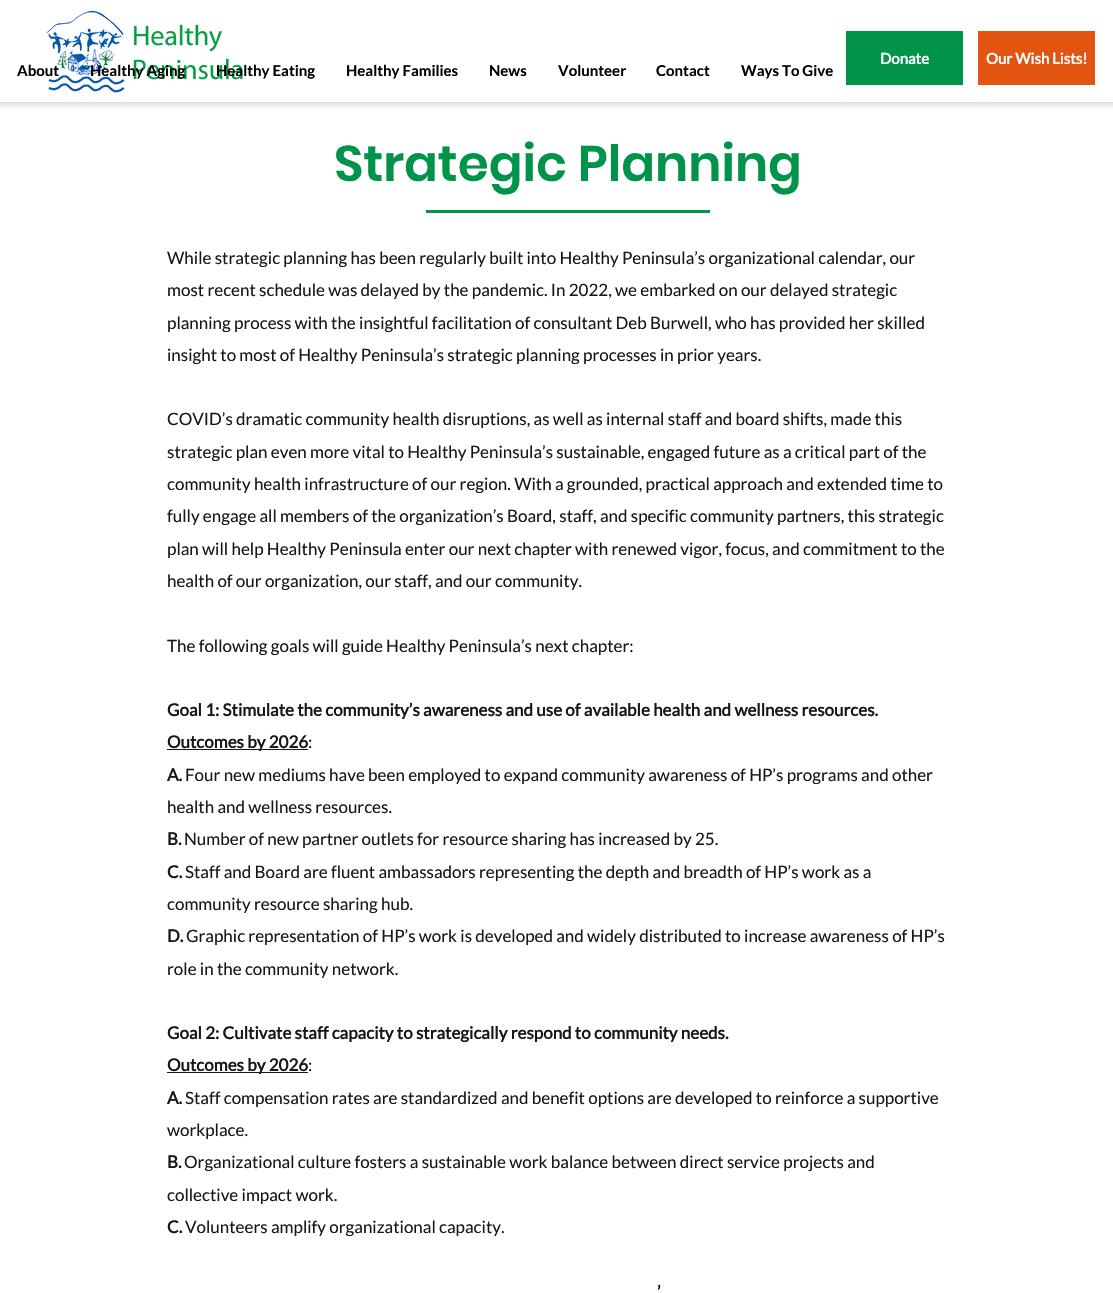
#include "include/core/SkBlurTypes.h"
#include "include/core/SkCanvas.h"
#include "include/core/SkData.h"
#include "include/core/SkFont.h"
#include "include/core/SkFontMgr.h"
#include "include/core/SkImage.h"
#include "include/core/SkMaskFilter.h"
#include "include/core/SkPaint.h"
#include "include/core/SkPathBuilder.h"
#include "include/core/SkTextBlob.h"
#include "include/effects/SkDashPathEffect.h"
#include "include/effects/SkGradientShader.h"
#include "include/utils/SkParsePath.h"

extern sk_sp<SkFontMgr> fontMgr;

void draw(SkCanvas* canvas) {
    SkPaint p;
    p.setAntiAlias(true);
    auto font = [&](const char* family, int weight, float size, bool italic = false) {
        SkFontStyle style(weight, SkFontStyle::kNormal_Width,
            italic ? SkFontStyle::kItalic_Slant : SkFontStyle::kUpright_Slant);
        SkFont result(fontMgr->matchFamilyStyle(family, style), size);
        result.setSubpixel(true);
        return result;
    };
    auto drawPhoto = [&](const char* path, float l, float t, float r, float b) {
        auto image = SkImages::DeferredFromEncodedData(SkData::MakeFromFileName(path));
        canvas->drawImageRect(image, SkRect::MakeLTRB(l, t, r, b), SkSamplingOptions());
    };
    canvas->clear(0xFFFFFFFF);
    canvas->save();
    canvas->clipRect(SkRect::MakeLTRB(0, 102, 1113, 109));
    p.setColor(0x47000000);
    p.setMaskFilter(SkMaskFilter::MakeBlur(kNormal_SkBlurStyle, 4.5f));
    canvas->drawRect(SkRect::MakeLTRB(-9, -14, 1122, 102), p);
    p.setMaskFilter(nullptr);
    canvas->restore();
    drawPhoto("media/1.png", 46, 10, 243, 93);
    p.setColor(0xFF00944A);
    canvas->drawRect(SkRect::MakeLTRB(846, 31, 963, 85), p);
    auto font1 = font("Lato", 700, 15);
    p.setColor(0xFFFFFFFF);
    canvas->drawString("Donate", 880, 64, font1, p);
    p.setColor(0xFFE35411);
    canvas->drawRect(SkRect::MakeLTRB(978, 31, 1095, 85), p);
    p.setColor(0xFFFFFFFF);
    canvas->drawString("Our Wish Lists!", 986, 64, font1, p);
    auto font2 = font("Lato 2", 700, 15);
    p.setColor(0xFF000000);
    {
        const struct { const char* s; float x, y; } items[] = {
            {"About", 17, 76},
            {"Healthy Aging", 90, 76},
            {"Healthy Eating", 216, 76},
            {"Healthy Families", 346, 76},
            {"News", 489, 76},
            {"Volunteer", 558, 76},
            {"Contact", 656, 76},
            {"Ways To Give", 741, 76},
        };
        for (auto [s, x, y] : items) {
            canvas->drawString(s, x, y, font2, p);
        }
    }
    auto font3 = font("Poppins", 600, 50);
    p.setColor(0xFF00944A);
    canvas->drawString("Strategic Planning", 334, 181, font3, p);
    canvas->drawRect(SkRect::MakeLTRB(426, 210, 710, 213), p);
    auto font4 = font("Lato", 400, 17);
    p.setColor(0xFF171717);
    {
        const struct { const char* s; float x, y; } items[] = {
            {"While strategic planning has been regularly built into Healthy Peninsula’s organizational calendar, our", 167, 264},
            {"most recent schedule was delayed by the pandemic. In 2022, we embarked on our delayed strategic", 167, 296},
            {"planning process with the insightful facilitation of consultant Deb Burwell, who has provided her skilled", 167, 329},
            {"insight to most of Healthy Peninsula’s strategic planning processes in prior years.", 167, 361},
            {"COVID’s dramatic community health disruptions, as well as internal staff and board shifts, made this", 167, 425},
            {"strategic plan even more vital to Healthy Peninsula’s sustainable, engaged future as a critical part of the", 167, 458},
            {"community health infrastructure of our region. With a grounded, practical approach and extended time to", 167, 490},
            {"fully engage all members of the organization’s Board, staff, and specific community partners, this strategic", 167, 522},
            {"plan will help Healthy Peninsula enter our next chapter with renewed vigor, focus, and commitment to the", 167, 555},
            {"health of our organization, our staff, and our community.", 167, 587},
            {"The following goals will guide Healthy Peninsula’s next chapter:", 167, 652},
        };
        for (auto [s, x, y] : items) {
            canvas->drawString(s, x, y, font4, p);
        }
    }
    auto font5 = font("Lato", 700, 17);
    canvas->drawString("Goal 1: Stimulate the community’s awareness and use of available health and wellness resources.", 167, 716, font5, p);
    canvas->drawRect(SkRect::MakeLTRB(167, 749, 308, 750), p);
    canvas->drawString("Outcomes by 2026", 167, 748, font5, p);
    canvas->drawString(":", 308, 748, font4, p);
    canvas->drawString("A.", 167, 781, font5, p);
    canvas->drawString("Four new mediums have been employed to expand community awareness of HP’s programs and other", 185, 781, font4, p);
    canvas->drawString("health and wellness resources.", 167, 813, font4, p);
    canvas->drawString("B.", 167, 845, font5, p);
    canvas->drawString("Number of new partner outlets for resource sharing has increased by 25.", 184, 845, font4, p);
    canvas->drawString("C.", 167, 878, font5, p);
    canvas->drawString("Staff and Board are fluent ambassadors representing the depth and breadth of HP’s work as a", 185, 878, font4, p);
    canvas->drawString("community resource sharing hub.", 167, 910, font4, p);
    canvas->drawString("D.", 167, 942, font5, p);
    canvas->drawString("Graphic representation of HP’s work is developed and widely distributed to increase awareness of HP’s", 186, 942, font4, p);
    canvas->drawString("role in the community network.", 167, 975, font4, p);
    canvas->drawString("Goal 2: Cultivate staff capacity to strategically respond to community needs.", 167, 1039, font5, p);
    canvas->drawRect(SkRect::MakeLTRB(167, 1072, 308, 1073), p);
    canvas->drawString("Outcomes by 2026", 167, 1071, font5, p);
    canvas->drawString(":", 308, 1071, font4, p);
    canvas->drawString("A.", 167, 1104, font5, p);
    canvas->drawString("Staff compensation rates are standardized and benefit options are developed to reinforce a supportive", 185, 1104, font4, p);
    canvas->drawString("workplace.", 167, 1136, font4, p);
    canvas->drawString("B.", 167, 1168, font5, p);
    canvas->drawString("Organizational culture fosters a sustainable work balance between direct service projects and", 184, 1168, font4, p);
    canvas->drawString("collective impact work.", 167, 1201, font4, p);
    canvas->drawString("C.", 167, 1233, font5, p);
    canvas->drawString("Volunteers amplify organizational capacity.", 185, 1233, font4, p);
    canvas->drawString("’", 657, 1298, font5, p);
}
